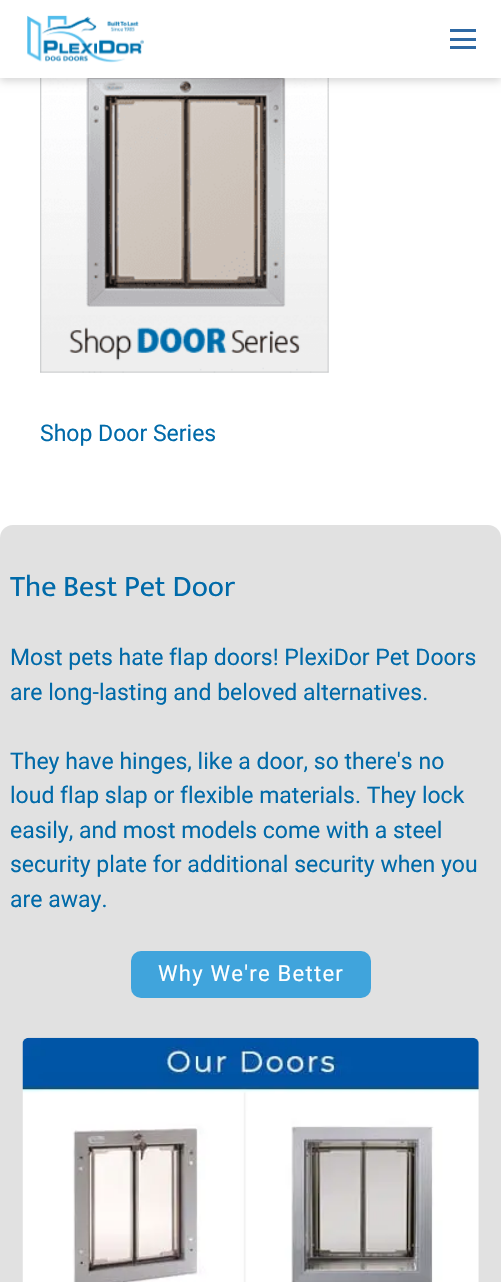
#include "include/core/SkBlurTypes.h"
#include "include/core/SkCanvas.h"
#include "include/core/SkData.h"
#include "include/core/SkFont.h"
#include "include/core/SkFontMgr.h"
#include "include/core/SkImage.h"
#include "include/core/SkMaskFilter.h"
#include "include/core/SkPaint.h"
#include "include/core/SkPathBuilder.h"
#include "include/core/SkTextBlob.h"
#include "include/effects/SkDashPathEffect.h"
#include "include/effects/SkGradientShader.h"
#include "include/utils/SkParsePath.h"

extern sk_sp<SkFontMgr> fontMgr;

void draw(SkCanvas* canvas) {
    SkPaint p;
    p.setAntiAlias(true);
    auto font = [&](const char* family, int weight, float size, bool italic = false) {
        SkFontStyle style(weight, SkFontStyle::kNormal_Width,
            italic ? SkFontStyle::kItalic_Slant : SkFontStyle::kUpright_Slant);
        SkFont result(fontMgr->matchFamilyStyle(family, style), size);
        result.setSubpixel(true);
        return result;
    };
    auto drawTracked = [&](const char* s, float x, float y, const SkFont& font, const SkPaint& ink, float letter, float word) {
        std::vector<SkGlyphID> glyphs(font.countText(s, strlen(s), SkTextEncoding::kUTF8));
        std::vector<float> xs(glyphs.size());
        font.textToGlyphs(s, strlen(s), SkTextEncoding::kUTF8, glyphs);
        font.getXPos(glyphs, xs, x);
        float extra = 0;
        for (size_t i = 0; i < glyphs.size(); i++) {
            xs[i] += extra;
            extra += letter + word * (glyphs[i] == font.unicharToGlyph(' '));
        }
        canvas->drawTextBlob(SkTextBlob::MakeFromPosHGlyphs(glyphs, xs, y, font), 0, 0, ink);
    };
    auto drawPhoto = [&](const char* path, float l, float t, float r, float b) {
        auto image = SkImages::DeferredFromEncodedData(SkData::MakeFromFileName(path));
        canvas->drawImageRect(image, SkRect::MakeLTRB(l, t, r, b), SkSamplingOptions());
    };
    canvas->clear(0xFFFFFFFF);
    drawPhoto("media/2.png", 40, 78, 329, 373);
    p.setColor(0x29000000);
    p.setMaskFilter(SkMaskFilter::MakeBlur(kNormal_SkBlurStyle, 4));
    canvas->drawRect(SkRect::MakeLTRB(0, 4, 501, 81), p);
    p.setMaskFilter(nullptr);
    p.setColor(0xFFFFFFFF);
    canvas->drawRect(SkRect::MakeLTRB(0, 0, 501, 78), p);
    drawPhoto("media/1.png", 27, 15, 144, 63);
    {
        const struct { float l, t, r, b; SkColor color; } items[] = {
            {450, 29, 476, 32, 0xFF2E69A4},
            {450, 38, 476, 41, 0xFF2E69A4},
            {450, 46, 476, 49, 0xFF2E69A4},
        };
        for (auto [l, t, r, b, color] : items) {
            p.setColor(color);
            canvas->drawRect(SkRect::MakeLTRB(l, t, r, b), p);
        }
    }
    auto font1 = font("Roboto", 400, 23);
    p.setColor(0xFF006AA9);
    canvas->drawString("Shop Door Series", 40, 441, font1, p);
    p.setColor(0xFFE1E1E1);
    canvas->drawRoundRect(SkRect::MakeLTRB(0, 525, 501, 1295), 13, 13, p);
    auto font2 = font("Mukta Vaani", 400, 30);
    p.setColor(0xFF006AA9);
    canvas->drawString("The Best Pet Door", 10, 596, font2, p);
    {
        const struct { const char* s; float x, y; } items[] = {
            {"Most pets hate flap doors! PlexiDor Pet Doors", 10, 665},
            {"are long-lasting and beloved alternatives.", 10, 700},
            {"They have hinges, like a door, so there's no", 10, 769},
            {"loud flap slap or flexible materials. They lock", 10, 803},
            {"easily, and most models come with a steel", 10, 838},
            {"security plate for additional security when you", 10, 872},
            {"are away.", 10, 907},
        };
        for (auto [s, x, y] : items) {
            canvas->drawString(s, x, y, font1, p);
        }
    }
    p.setColor(0xFF40A4DC);
    canvas->drawRoundRect(SkRect::MakeLTRB(131, 951, 371, 998), 10, 10, p);
    auto font3 = font("Roboto", 400, 22);
    p.setColor(0xFFFFFFFF);
    drawTracked("Why We're Better", 158, 981, font3, p, 1.25f, 0);
    drawPhoto("media/3.png", 22, 1037, 479, 1282);
}
